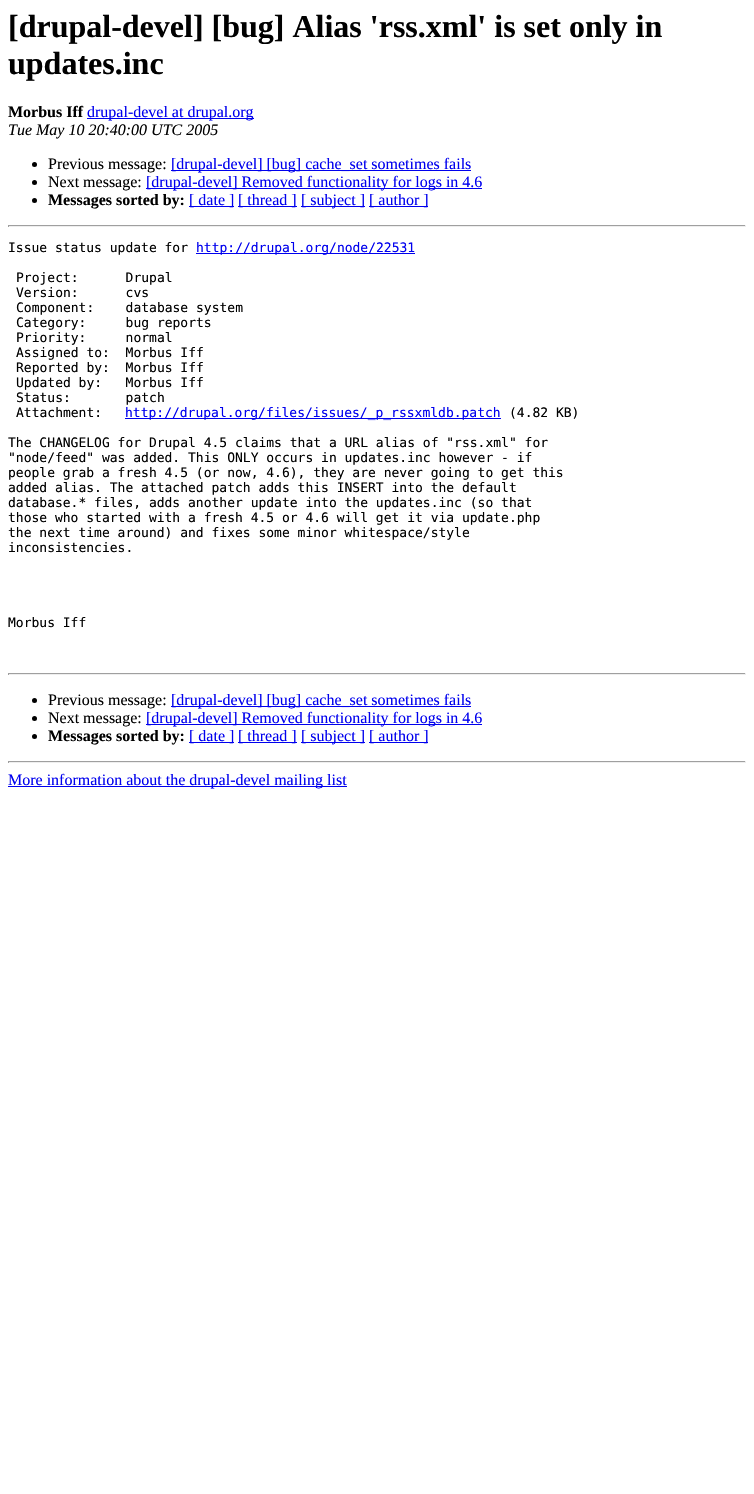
#include "include/core/SkBlurTypes.h"
#include "include/core/SkCanvas.h"
#include "include/core/SkData.h"
#include "include/core/SkFont.h"
#include "include/core/SkFontMgr.h"
#include "include/core/SkImage.h"
#include "include/core/SkMaskFilter.h"
#include "include/core/SkPaint.h"
#include "include/core/SkPathBuilder.h"
#include "include/core/SkTextBlob.h"
#include "include/effects/SkDashPathEffect.h"
#include "include/effects/SkGradientShader.h"
#include "include/utils/SkParsePath.h"

extern sk_sp<SkFontMgr> fontMgr;

void draw(SkCanvas* canvas) {
    SkPaint p;
    p.setAntiAlias(true);
    auto font = [&](const char* family, int weight, float size, bool italic = false) {
        SkFontStyle style(weight, SkFontStyle::kNormal_Width,
            italic ? SkFontStyle::kItalic_Slant : SkFontStyle::kUpright_Slant);
        SkFont result(fontMgr->matchFamilyStyle(family, style), size);
        result.setSubpixel(true);
        return result;
    };
    canvas->clear(0xFFFFFFFF);
    auto font1 = font("Liberation Serif", 700, 32);
    p.setColor(0xFF000000);
    canvas->drawString("[drupal-devel] [bug] Alias 'rss.xml' is set only in", 8, 37, font1, p);
    canvas->drawString("updates.inc", 8, 74, font1, p);
    auto font2 = font("Liberation Serif", 700, 16);
    canvas->drawString("Morbus Iff", 8, 117, font2, p);
    p.setColor(0xFF0000EE);
    canvas->drawRect(SkRect::MakeLTRB(87, 118, 254, 119), p);
    auto font3 = font("Liberation Serif", 400, 16);
    canvas->drawString("drupal-devel at drupal.org", 87, 117, font3, p);
    auto font4 = font("Liberation Serif", 400, 16, true);
    p.setColor(0xFF000000);
    canvas->drawString("Tue May 10 20:40:00 UTC 2005", 8, 135, font4, p);
    canvas->drawCircle(34.5f, 164.5f, 2.5f, p);
    canvas->drawString("Previous message:", 48, 169, font3, p);
    p.setColor(0xFF0000EE);
    canvas->drawRect(SkRect::MakeLTRB(171, 170, 471, 171), p);
    canvas->drawString("[drupal-devel] [bug] cache_set sometimes fails", 171, 169, font3, p);
    p.setColor(0xFF000000);
    canvas->drawCircle(34.5f, 182.5f, 2.5f, p);
    canvas->drawString("Next message:", 48, 187, font3, p);
    p.setColor(0xFF0000EE);
    canvas->drawRect(SkRect::MakeLTRB(146, 188, 482, 189), p);
    canvas->drawString("[drupal-devel] Removed functionality for logs in 4.6", 146, 187, font3, p);
    p.setColor(0xFF000000);
    canvas->drawCircle(34.5f, 200.5f, 2.5f, p);
    canvas->drawString("Messages sorted by:", 48, 205, font2, p);
    p.setColor(0xFF0000EE);
    canvas->drawRect(SkRect::MakeLTRB(189, 206, 234, 207), p);
    canvas->drawString("[ date ]", 189, 205, font3, p);
    canvas->drawRect(SkRect::MakeLTRB(238, 206, 297, 207), p);
    canvas->drawString("[ thread ]", 238, 205, font3, p);
    canvas->drawRect(SkRect::MakeLTRB(301, 206, 365, 207), p);
    canvas->drawString("[ subject ]", 301, 205, font3, p);
    canvas->drawRect(SkRect::MakeLTRB(369, 206, 428, 207), p);
    canvas->drawString("[ author ]", 369, 205, font3, p);
    {
        const struct { float l, t, r, b; SkColor color; } items[] = {
            {8, 225, 746, 226, 0xFF9F9F9F},
            {745, 225, 746, 227, 0xFFEEEEEE},
            {8, 226, 746, 227, 0xFFEEEEEE},
            {8, 225, 9, 227, 0xFF9F9F9F},
        };
        for (auto [l, t, r, b, color] : items) {
            p.setColor(color);
            canvas->drawRect(SkRect::MakeLTRB(l, t, r, b), p);
        }
    }
    auto font5 = font("DejaVu Sans Mono", 400, 13);
    p.setColor(0xFF000000);
    canvas->drawString("Issue status update for", 8, 252, font5, p);
    p.setColor(0xFF0000EE);
    canvas->drawRect(SkRect::MakeLTRB(196, 253, 415, 254), p);
    canvas->drawString("http://drupal.org/node/22531", 196, 252, font5, p);
    p.setColor(0xFF000000);
    {
        const struct { const char* s; float x, y; } items[] = {
            {"Project:      Drupal", 16, 282},
            {"Version:      cvs", 16, 297},
            {"Component:    database system", 16, 312},
            {"Category:     bug reports", 16, 327},
            {"Priority:     normal", 16, 342},
            {"Assigned to:  Morbus Iff", 16, 357},
            {"Reported by:  Morbus Iff", 16, 372},
            {"Updated by:   Morbus Iff", 16, 387},
            {"Status:       patch", 16, 402},
            {"Attachment:", 16, 417},
        };
        for (auto [s, x, y] : items) {
            canvas->drawString(s, x, y, font5, p);
        }
    }
    p.setColor(0xFF0000EE);
    canvas->drawRect(SkRect::MakeLTRB(125, 418, 501, 419), p);
    canvas->drawString("http://drupal.org/files/issues/_p_rssxmldb.patch", 125, 417, font5, p);
    p.setColor(0xFF000000);
    {
        const struct { const char* s; float x, y; } items[] = {
            {"(4.82 KB)", 509, 417},
            {"The CHANGELOG for Drupal 4.5 claims that a URL alias of \"rss.xml\" for", 8, 447},
            {"\"node/feed\" was added. This ONLY occurs in updates.inc however - if", 8, 462},
            {"people grab a fresh 4.5 (or now, 4.6), they are never going to get this", 8, 477},
            {"added alias. The attached patch adds this INSERT into the default", 8, 492},
            {"database.* files, adds another update into the updates.inc (so that", 8, 507},
            {"those who started with a fresh 4.5 or 4.6 will get it via update.php", 8, 522},
            {"the next time around) and fixes some minor whitespace/style", 8, 537},
            {"inconsistencies.", 8, 552},
            {"Morbus Iff", 8, 627},
        };
        for (auto [s, x, y] : items) {
            canvas->drawString(s, x, y, font5, p);
        }
    }
    {
        const struct { float l, t, r, b; SkColor color; } items[] = {
            {8, 673, 746, 674, 0xFF9F9F9F},
            {745, 673, 746, 675, 0xFFEEEEEE},
            {8, 674, 746, 675, 0xFFEEEEEE},
            {8, 673, 9, 675, 0xFF9F9F9F},
        };
        for (auto [l, t, r, b, color] : items) {
            p.setColor(color);
            canvas->drawRect(SkRect::MakeLTRB(l, t, r, b), p);
        }
    }
    p.setColor(0xFF000000);
    canvas->drawCircle(34.5f, 700.5f, 2.5f, p);
    canvas->drawString("Previous message:", 48, 705, font3, p);
    p.setColor(0xFF0000EE);
    canvas->drawRect(SkRect::MakeLTRB(171, 706, 471, 707), p);
    canvas->drawString("[drupal-devel] [bug] cache_set sometimes fails", 171, 705, font3, p);
    p.setColor(0xFF000000);
    canvas->drawCircle(34.5f, 718.5f, 2.5f, p);
    canvas->drawString("Next message:", 48, 723, font3, p);
    p.setColor(0xFF0000EE);
    canvas->drawRect(SkRect::MakeLTRB(146, 724, 482, 725), p);
    canvas->drawString("[drupal-devel] Removed functionality for logs in 4.6", 146, 723, font3, p);
    p.setColor(0xFF000000);
    canvas->drawCircle(34.5f, 736.5f, 2.5f, p);
    canvas->drawString("Messages sorted by:", 48, 741, font2, p);
    p.setColor(0xFF0000EE);
    canvas->drawRect(SkRect::MakeLTRB(189, 742, 234, 743), p);
    canvas->drawString("[ date ]", 189, 741, font3, p);
    canvas->drawRect(SkRect::MakeLTRB(238, 742, 297, 743), p);
    canvas->drawString("[ thread ]", 238, 741, font3, p);
    canvas->drawRect(SkRect::MakeLTRB(301, 742, 365, 743), p);
    canvas->drawString("[ subject ]", 301, 741, font3, p);
    canvas->drawRect(SkRect::MakeLTRB(369, 742, 428, 743), p);
    canvas->drawString("[ author ]", 369, 741, font3, p);
    {
        const struct { float l, t, r, b; SkColor color; } items[] = {
            {8, 761, 746, 762, 0xFF9F9F9F},
            {745, 761, 746, 763, 0xFFEEEEEE},
            {8, 762, 746, 763, 0xFFEEEEEE},
            {8, 761, 9, 763, 0xFF9F9F9F},
            {8, 786, 347, 787, 0xFF0000EE},
        };
        for (auto [l, t, r, b, color] : items) {
            p.setColor(color);
            canvas->drawRect(SkRect::MakeLTRB(l, t, r, b), p);
        }
    }
    canvas->drawString("More information about the drupal-devel mailing list", 8, 785, font3, p);
}
